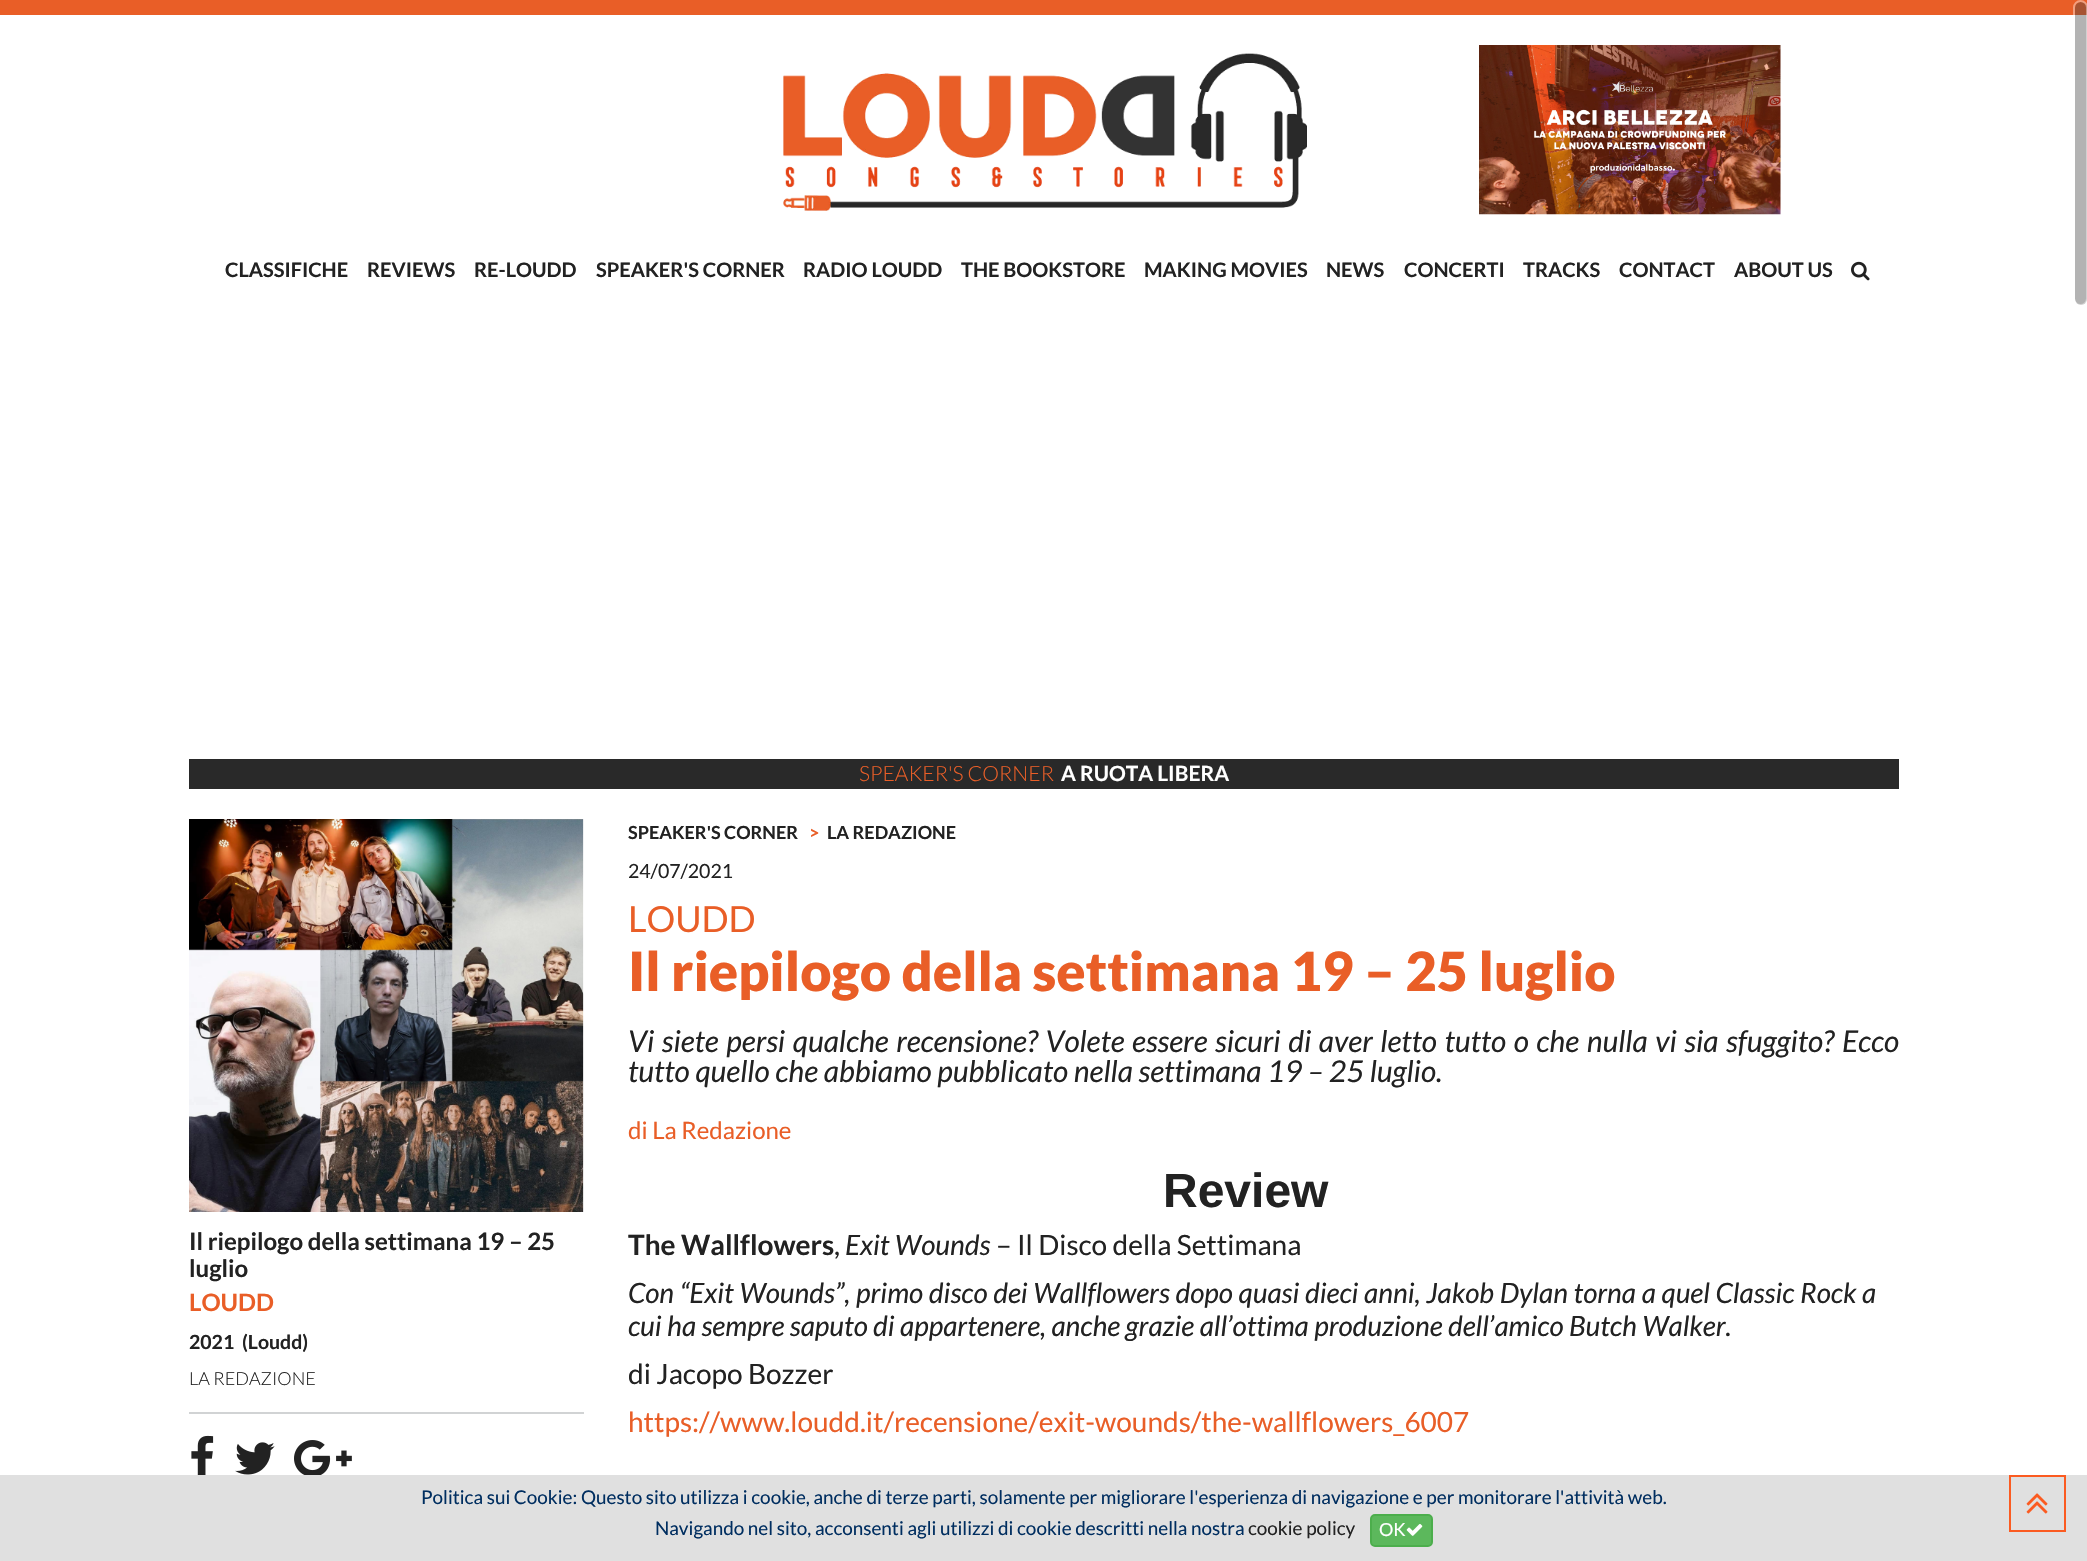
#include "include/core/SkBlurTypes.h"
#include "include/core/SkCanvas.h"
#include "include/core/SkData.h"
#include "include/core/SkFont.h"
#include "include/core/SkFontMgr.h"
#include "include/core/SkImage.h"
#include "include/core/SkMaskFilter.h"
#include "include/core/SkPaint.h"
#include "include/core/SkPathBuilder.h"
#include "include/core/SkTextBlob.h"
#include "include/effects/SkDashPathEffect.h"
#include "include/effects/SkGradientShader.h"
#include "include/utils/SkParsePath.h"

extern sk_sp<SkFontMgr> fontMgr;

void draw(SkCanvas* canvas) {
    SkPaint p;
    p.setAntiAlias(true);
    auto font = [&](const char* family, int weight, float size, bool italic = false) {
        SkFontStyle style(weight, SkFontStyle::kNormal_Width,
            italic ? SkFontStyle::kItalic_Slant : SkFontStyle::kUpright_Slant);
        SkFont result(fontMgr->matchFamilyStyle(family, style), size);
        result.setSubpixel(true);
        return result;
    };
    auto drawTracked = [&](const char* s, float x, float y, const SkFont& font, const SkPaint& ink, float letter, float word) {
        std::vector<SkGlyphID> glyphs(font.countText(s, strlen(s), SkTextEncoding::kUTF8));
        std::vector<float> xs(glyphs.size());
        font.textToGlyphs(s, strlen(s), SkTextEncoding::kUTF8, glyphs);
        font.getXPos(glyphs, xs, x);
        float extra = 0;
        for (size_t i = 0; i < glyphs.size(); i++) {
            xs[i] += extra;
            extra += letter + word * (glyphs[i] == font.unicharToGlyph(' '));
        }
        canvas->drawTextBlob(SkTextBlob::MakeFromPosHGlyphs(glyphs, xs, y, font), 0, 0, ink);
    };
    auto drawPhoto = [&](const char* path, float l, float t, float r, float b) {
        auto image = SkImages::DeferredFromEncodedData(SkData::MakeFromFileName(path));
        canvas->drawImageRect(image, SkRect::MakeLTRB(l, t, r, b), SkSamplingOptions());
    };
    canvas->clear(0xFFFFFFFF);
    p.setColor(0xFFE95E27);
    canvas->drawRect(SkRect::MakeLTRB(0, 0, 2087, 15), p);
    p.setColor(0x66424242);
    canvas->drawRoundRect(SkRect::MakeLTRB(2075, 2, 2087, 305), 6, 6, p);
    p.setStyle(SkPaint::kStroke_Style);
    p.setStrokeWidth(2);
    p.setColor(0x66FFFFFF);
    canvas->drawRoundRect(SkRect::MakeLTRB(2074, 1, 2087, 305), 6.5f, 6.5f, p);
    drawPhoto("media/1.png", 783, 53, 1307, 211);
    drawPhoto("media/2.png", 1479, 45, 1781, 215);
    auto font1 = font("Lato", 700, 20);
    p.setStyle(SkPaint::kFill_Style);
    p.setColor(0xFF222222);
    {
        const struct { const char* s; float x, y; } items[] = {
            {"CLASSIFICHE", 225, 277},
            {"REVIEWS", 367, 277},
            {"RE-LOUDD", 474, 277},
            {"SPEAKER'S CORNER", 596, 277},
            {"RADIO LOUDD", 803, 277},
            {"THE BOOKSTORE", 961, 277},
            {"MAKING MOVIES", 1144, 277},
            {"NEWS", 1326, 277},
            {"CONCERTI", 1404, 277},
            {"TRACKS", 1523, 277},
            {"CONTACT", 1619, 277},
            {"ABOUT US", 1734, 277},
        };
        for (auto [s, x, y] : items) {
            canvas->drawString(s, x, y, font1, p);
        }
    }
    drawPhoto("media/3.png", 1851, 261, 1870, 281);
    p.setColor(0xFF292929);
    canvas->drawRect(SkRect::MakeLTRB(189, 759, 1899, 789), p);
    auto font2 = font("Lato", 300, 21);
    p.setColor(0xFFE95E27);
    canvas->drawString("SPEAKER'S CORNER", 859, 781, font2, p);
    auto font3 = font("Lato", 700, 21);
    p.setColor(0xFFFFFFFF);
    canvas->drawString("A RUOTA LIBERA", 1061, 781, font3, p);
    drawPhoto("media/4.png", 189, 819, 584, 1212);
    auto font4 = font("Lato", 700, 24);
    p.setColor(0xFF222222);
    canvas->drawString("Il riepilogo della settimana 19 – 25", 189, 1250, font4, p);
    canvas->drawString("luglio", 189, 1277, font4, p);
    p.setColor(0xFFE95E27);
    canvas->drawString("LOUDD", 189, 1311, font4, p);
    auto font5 = font("Lato", 700, 19.5f);
    p.setColor(0xFF222222);
    canvas->drawString("2021", 189, 1349, font5, p);
    canvas->drawString("(Loudd)", 242, 1349, font5, p);
    p.setColor(0xFFD1D3D4);
    canvas->drawRect(SkRect::MakeLTRB(189, 1412, 584, 1414), p);
    auto font6 = font("Lato", 300, 18);
    p.setColor(0xFF222222);
    canvas->drawString("LA REDAZIONE", 189, 1385, font6, p);
    drawPhoto("media/5.png", 191, 1435, 214, 1475);
    drawPhoto("media/6.png", 235, 1442, 275, 1475);
    drawPhoto("media/7.png", 294, 1440, 352, 1475);
    auto font7 = font("Lato", 700, 18);
    canvas->drawString("SPEAKER'S CORNER", 628, 839, font7, p);
    p.setColor(0xFFE95E27);
    canvas->drawString(">", 809, 839, font7, p);
    p.setColor(0xFF222222);
    canvas->drawString("LA REDAZIONE", 827, 839, font7, p);
    auto font8 = font("Lato", 400, 19.5f);
    canvas->drawString("24/07/2021", 628, 878, font8, p);
    auto font9 = font("Lato", 400, 36);
    p.setColor(0xFFE95E27);
    canvas->drawString("LOUDD", 628, 932, font9, p);
    auto font10 = font("Lato", 900, 54);
    canvas->drawString("Il riepilogo della settimana 19 – 25 luglio", 628, 991, font10, p);
    auto font11 = font("Lato", 400, 30, true);
    p.setColor(0xFF222222);
    drawTracked("Vi siete persi qualche recensione? Volete essere sicuri di aver letto tutto o che nulla vi sia sfuggito?", 628, 1052, font11, p, 0, 1.8f);
    canvas->drawString("Ecco", 1842, 1052, font11, p);
    canvas->drawString("tutto quello che abbiamo pubblicato nella settimana 19 – 25 luglio.", 628, 1082, font11, p);
    auto font12 = font("Lato", 400, 24);
    p.setColor(0xFFE95E27);
    canvas->drawString("di La Redazione", 628, 1139, font12, p);
    auto font13 = font("Liberation Sans", 700, 48);
    p.setColor(0xFF222222);
    canvas->drawString("Review", 1163, 1207, font13, p);
    auto font14 = font("Lato", 700, 28);
    canvas->drawString("The Wallflowers", 628, 1255, font14, p);
    auto font15 = font("Lato", 400, 28);
    canvas->drawString(",", 834, 1255, font15, p);
    auto font16 = font("Lato", 400, 28, true);
    canvas->drawString("Exit Wounds", 845, 1255, font16, p);
    canvas->drawString("– Il Disco della Settimana", 996, 1255, font15, p);
    drawTracked("Con “Exit Wounds”, primo disco dei Wallflowers dopo quasi dieci anni, Jakob Dylan torna a quel Classic Rock a", 628, 1303, font16, p, 0, 0.3f);
    canvas->drawString("cui ha sempre saputo di appartenere, anche grazie all’ottima produzione dell’amico Butch Walker.", 628, 1336, font16, p);
    canvas->drawString("di Jacopo Bozzer", 628, 1384, font15, p);
    p.setColor(0xFFE95E27);
    canvas->drawString("https://www.loudd.it/recensione/exit-wounds/the-wallflowers_6007", 628, 1432, font15, p);
    p.setColor(0xFFE0E0E0);
    canvas->drawRect(SkRect::MakeLTRB(0, 1475, 2087, 1561), p);
    auto font17 = font("Lato", 400, 18.9f);
    p.setColor(0xFF002E60);
    canvas->drawString("Politica sui Cookie: Questo sito utilizza i cookie, anche di terze parti, solamente per migliorare l'esperienza di navigazione e per monitorare l'attività web.", 421, 1504, font17, p);
    canvas->drawString("Navigando nel sito, acconsenti agli utilizzi di cookie descritti nella nostra", 655, 1535, font17, p);
    p.setColor(0xFF222222);
    canvas->drawString("cookie policy", 1248, 1535, font17, p);
    p.setColor(0xFF5CB85C);
    canvas->drawRoundRect(SkRect::MakeLTRB(1371, 1515, 1432, 1546), 4, 4, p);
    p.setStyle(SkPaint::kStroke_Style);
    p.setColor(0xFF4CAE4C);
    canvas->drawRoundRect(SkRect::MakeLTRB(1371, 1515, 1432, 1546), 4, 4, p);
    auto font18 = font("Lato", 400, 18);
    p.setStyle(SkPaint::kFill_Style);
    p.setColor(0xFFFFFFFF);
    canvas->drawString("OK", 1379, 1536, font18, p);
    drawPhoto("media/8.png", 1406, 1524, 1423, 1536);
    p.setStyle(SkPaint::kStroke_Style);
    p.setColor(0xFFFB5B21);
    canvas->drawRect(SkRect::MakeLTRB(2010, 1476, 2065, 1531), p);
    drawPhoto("media/9.png", 2026, 1493, 2048, 1514);
}
